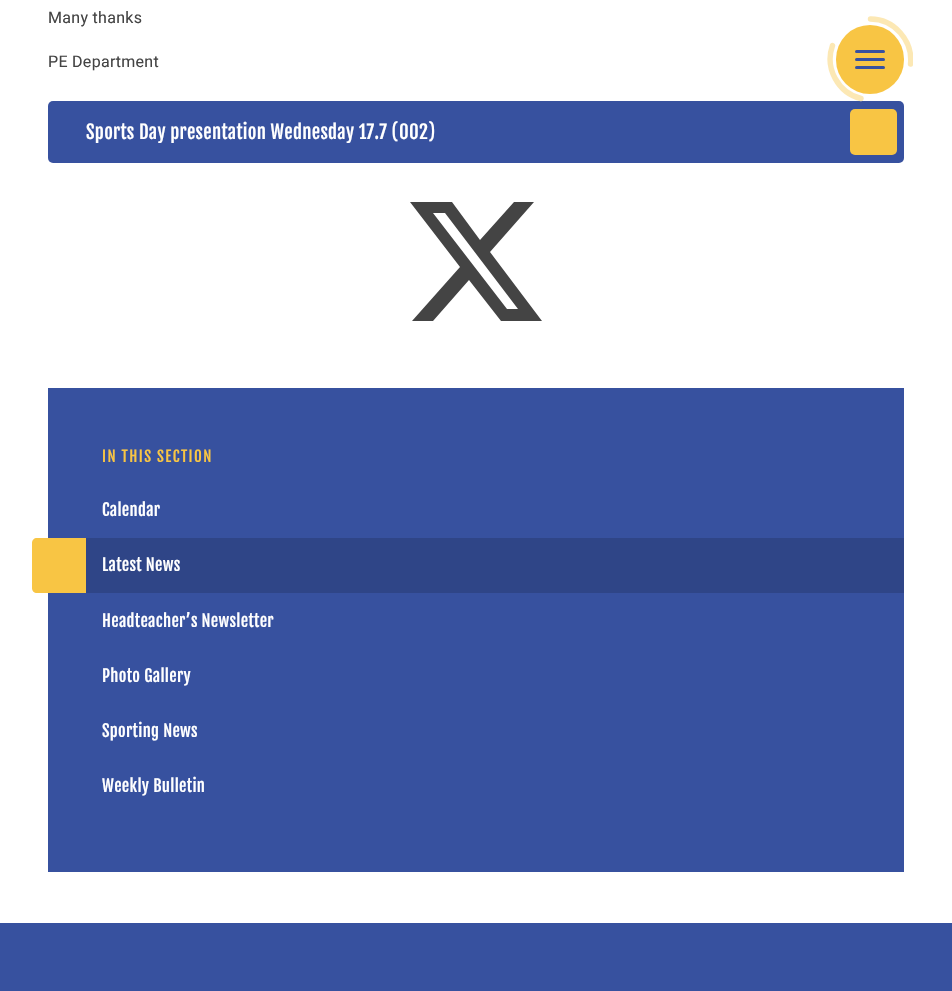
#include "include/core/SkBlurTypes.h"
#include "include/core/SkCanvas.h"
#include "include/core/SkData.h"
#include "include/core/SkFont.h"
#include "include/core/SkFontMgr.h"
#include "include/core/SkImage.h"
#include "include/core/SkMaskFilter.h"
#include "include/core/SkPaint.h"
#include "include/core/SkPathBuilder.h"
#include "include/core/SkTextBlob.h"
#include "include/effects/SkDashPathEffect.h"
#include "include/effects/SkGradientShader.h"
#include "include/utils/SkParsePath.h"

extern sk_sp<SkFontMgr> fontMgr;

void draw(SkCanvas* canvas) {
    SkPaint p;
    p.setAntiAlias(true);
    auto font = [&](const char* family, int weight, float size, bool italic = false) {
        SkFontStyle style(weight, SkFontStyle::kNormal_Width,
            italic ? SkFontStyle::kItalic_Slant : SkFontStyle::kUpright_Slant);
        SkFont result(fontMgr->matchFamilyStyle(family, style), size);
        result.setSubpixel(true);
        return result;
    };
    auto drawTracked = [&](const char* s, float x, float y, const SkFont& font, const SkPaint& ink, float letter, float word) {
        std::vector<SkGlyphID> glyphs(font.countText(s, strlen(s), SkTextEncoding::kUTF8));
        std::vector<float> xs(glyphs.size());
        font.textToGlyphs(s, strlen(s), SkTextEncoding::kUTF8, glyphs);
        font.getXPos(glyphs, xs, x);
        float extra = 0;
        for (size_t i = 0; i < glyphs.size(); i++) {
            xs[i] += extra;
            extra += letter + word * (glyphs[i] == font.unicharToGlyph(' '));
        }
        canvas->drawTextBlob(SkTextBlob::MakeFromPosHGlyphs(glyphs, xs, y, font), 0, 0, ink);
    };
    canvas->clear(0xFFFFFFFF);
    auto font1 = font("Roboto", 400, 16);
    p.setColor(0xFF444444);
    drawTracked("Many thanks", 48, 23, font1, p, 0.3f, 0);
    drawTracked("PE Department", 48, 67, font1, p, 0.3f, 0);
    p.setColor(0xFF37519F);
    canvas->drawRoundRect(SkRect::MakeLTRB(48, 101, 904, 163), 5, 5, p);
    auto font2 = font("Fjalla One", 400, 18.7f);
    p.setColor(0xFFFFFFFF);
    drawTracked("Sports Day presentation Wednesday 17.7 (002)", 86, 139, font2, p, 0.3f, 0);
    p.setColor(0xFFF8C544);
    canvas->drawRoundRect(SkRect::MakeLTRB(850, 109, 897, 155), 5, 5, p);
    p.setColor(0xFF444444);
    canvas->drawPath(SkPathBuilder().moveTo(514, 202).lineTo(534, 202).lineTo(490, 252).lineTo(542, 321).lineTo(501, 321).lineTo(469, 280).lineTo(433, 321).lineTo(412, 321).lineTo(460, 267).lineTo(410, 202).lineTo(452, 202).lineTo(480, 240).close().moveTo(507, 309).lineTo(518, 309).lineTo(445, 213).lineTo(433, 213).close().detach(), p);
    p.setColor(0xFF37519F);
    canvas->drawRect(SkRect::MakeLTRB(48, 388, 904, 872), p);
    auto font3 = font("Fjalla One", 400, 15);
    p.setColor(0xFFF8C544);
    drawTracked("IN THIS SECTION", 102, 462, font3, p, 1.4f, 0);
    auto font4 = font("Fjalla One", 400, 16.5f);
    p.setColor(0xFFFFFFFF);
    drawTracked("Calendar", 102, 516, font4, p, 0.3f, 0);
    p.setColor(0xFFF8C544);
    canvas->drawPath(SkPathBuilder().moveTo(37, 538).lineTo(86, 538).lineTo(86, 593).lineTo(37, 593).cubicTo(34, 593, 32, 591, 32, 588).lineTo(32, 543).cubicTo(32, 540, 34, 538, 37, 538).close().detach(), p);
    p.setColor(0xFF2F4587);
    canvas->drawRect(SkRect::MakeLTRB(86, 538, 904, 593), p);
    p.setColor(0xFFFFFFFF);
    {
        const struct { const char* s; float x, y; } items[] = {
            {"Latest News", 102, 571},
            {"Headteacher’s Newsletter", 102, 627},
            {"Photo Gallery", 102, 682},
            {"Sporting News", 102, 737},
            {"Weekly Bulletin", 102, 792},
        };
        for (auto [s, x, y] : items) {
            drawTracked(s, x, y, font4, p, 0.3f, 0);
        }
    }
    p.setColor(0xFFF8C544);
    canvas->drawRoundRect(SkRect::MakeLTRB(836, 25, 904, 94), 34, 34, p);
    canvas->save();
    canvas->clipRect(SkRect::MakeLTRB(827, 16, 913, 102));
    p.setStyle(SkPaint::kStroke_Style);
    p.setStrokeWidth(5.4f);
    p.setStrokeCap(SkPaint::kRound_Cap);
    p.setColor(0xFFFCE8B4);
    canvas->drawPath(SkPathBuilder().moveTo(870.5f, 19).cubicTo(894, 19, 913, 40.5f, 910.5f, 64).moveTo(861, 98.5f).cubicTo(838, 93, 824.5f, 68, 832.5f, 45.5f).detach(), p);
    canvas->restore();
    p.setStyle(SkPaint::kFill_Style);
    p.setColor(0xFF37519F);
    canvas->drawRoundRect(SkRect::MakeLTRB(855, 50, 885, 53), 1.5f, 1.5f, p);
    canvas->drawRoundRect(SkRect::MakeLTRB(855, 58, 885, 61), 1.5f, 1.5f, p);
    canvas->drawRoundRect(SkRect::MakeLTRB(855, 66, 885, 69), 1.5f, 1.5f, p);
    canvas->drawRect(SkRect::MakeLTRB(0, 923, 952, 991), p);
}
